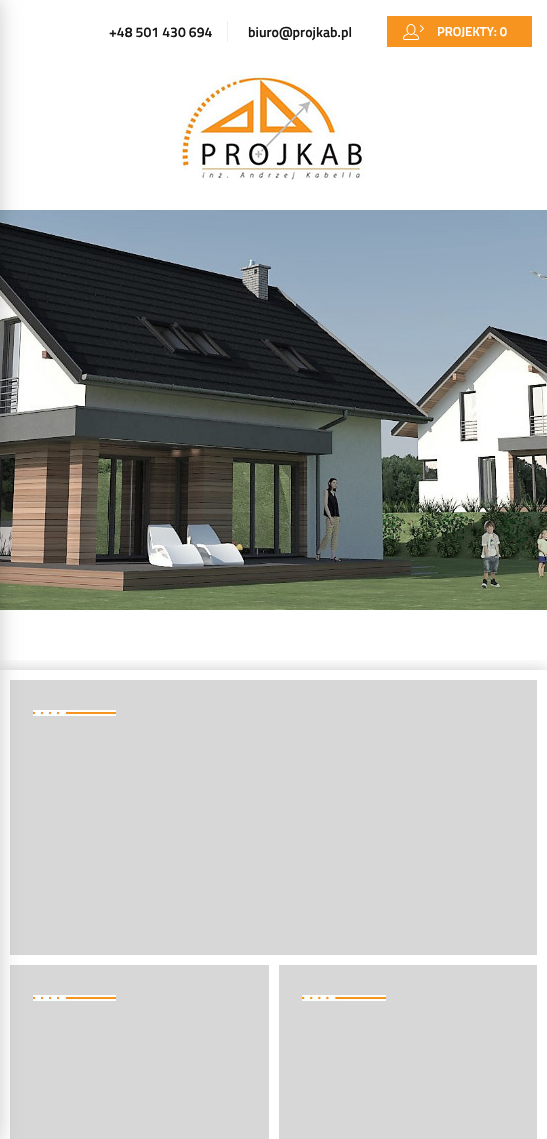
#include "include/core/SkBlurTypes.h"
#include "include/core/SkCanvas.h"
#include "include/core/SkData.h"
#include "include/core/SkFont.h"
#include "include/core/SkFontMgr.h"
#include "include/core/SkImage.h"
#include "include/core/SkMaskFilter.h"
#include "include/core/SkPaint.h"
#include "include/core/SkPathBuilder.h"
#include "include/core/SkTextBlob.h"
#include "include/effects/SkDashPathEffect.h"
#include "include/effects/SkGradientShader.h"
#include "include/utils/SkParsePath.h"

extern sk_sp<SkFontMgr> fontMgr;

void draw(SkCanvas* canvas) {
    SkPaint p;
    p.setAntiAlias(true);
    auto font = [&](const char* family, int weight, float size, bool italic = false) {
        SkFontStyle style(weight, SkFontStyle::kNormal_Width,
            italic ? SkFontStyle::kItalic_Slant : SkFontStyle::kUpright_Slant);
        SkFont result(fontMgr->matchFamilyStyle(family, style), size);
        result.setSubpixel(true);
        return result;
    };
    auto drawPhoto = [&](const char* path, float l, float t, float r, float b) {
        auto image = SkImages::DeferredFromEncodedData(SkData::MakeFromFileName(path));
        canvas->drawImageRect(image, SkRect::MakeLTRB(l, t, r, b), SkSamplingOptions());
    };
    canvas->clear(0xFFFFFFFF);
    drawPhoto("media/3.png", 0, 210, 547, 610);
    canvas->save();
    canvas->clipRect(SkRect::MakeLTRB(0, 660, 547, 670));
    p.setColor(0x33000000);
    p.setMaskFilter(SkMaskFilter::MakeBlur(kNormal_SkBlurStyle, 7.5f));
    canvas->drawRect(SkRect::MakeLTRB(0, 670, 547, 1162), p);
    p.setMaskFilter(nullptr);
    canvas->restore();
    p.setColor(0xFFD7D7D7);
    canvas->drawRect(SkRect::MakeLTRB(10, 680, 537, 955), p);
    canvas->drawRect(SkRect::MakeLTRB(10, 965, 269, 1139), p);
    p.setColor(0x33000000);
    p.setMaskFilter(SkMaskFilter::MakeBlur(kNormal_SkBlurStyle, 10));
    canvas->drawRect(SkRect::MakeLTRB(-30, 0, 0, 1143), p);
    p.setMaskFilter(nullptr);
    auto font1 = font("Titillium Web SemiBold", 600, 14);
    p.setColor(0xFF161616);
    canvas->drawString("+48 501 430 694", 109, 37, font1, p);
    p.setColor(0xFFEEEEEE);
    canvas->drawRect(SkRect::MakeLTRB(227, 21, 228, 42), p);
    p.setColor(0xFF161616);
    canvas->drawString("biuro@projkab.pl", 248, 37, font1, p);
    p.setColor(0xFFF7931F);
    canvas->drawRect(SkRect::MakeLTRB(387, 16, 532, 47), p);
    drawPhoto("media/1.png", 403, 24, 424, 40);
    auto font2 = font("Titillium Web SemiBold", 600, 13);
    p.setColor(0xFFFFFFFF);
    canvas->drawString("PROJEKTY: 0", 437, 36, font2, p);
    drawPhoto("media/2.png", 181, 75, 365, 180);
    drawPhoto("media/4.png", 33, 710, 116, 716);
    drawPhoto("media/4.png", 33, 995, 116, 1001);
    p.setColor(0xFFD7D7D7);
    canvas->drawRect(SkRect::MakeLTRB(279, 965, 537, 1139), p);
    drawPhoto("media/5.png", 302, 995, 386, 1001);
}
